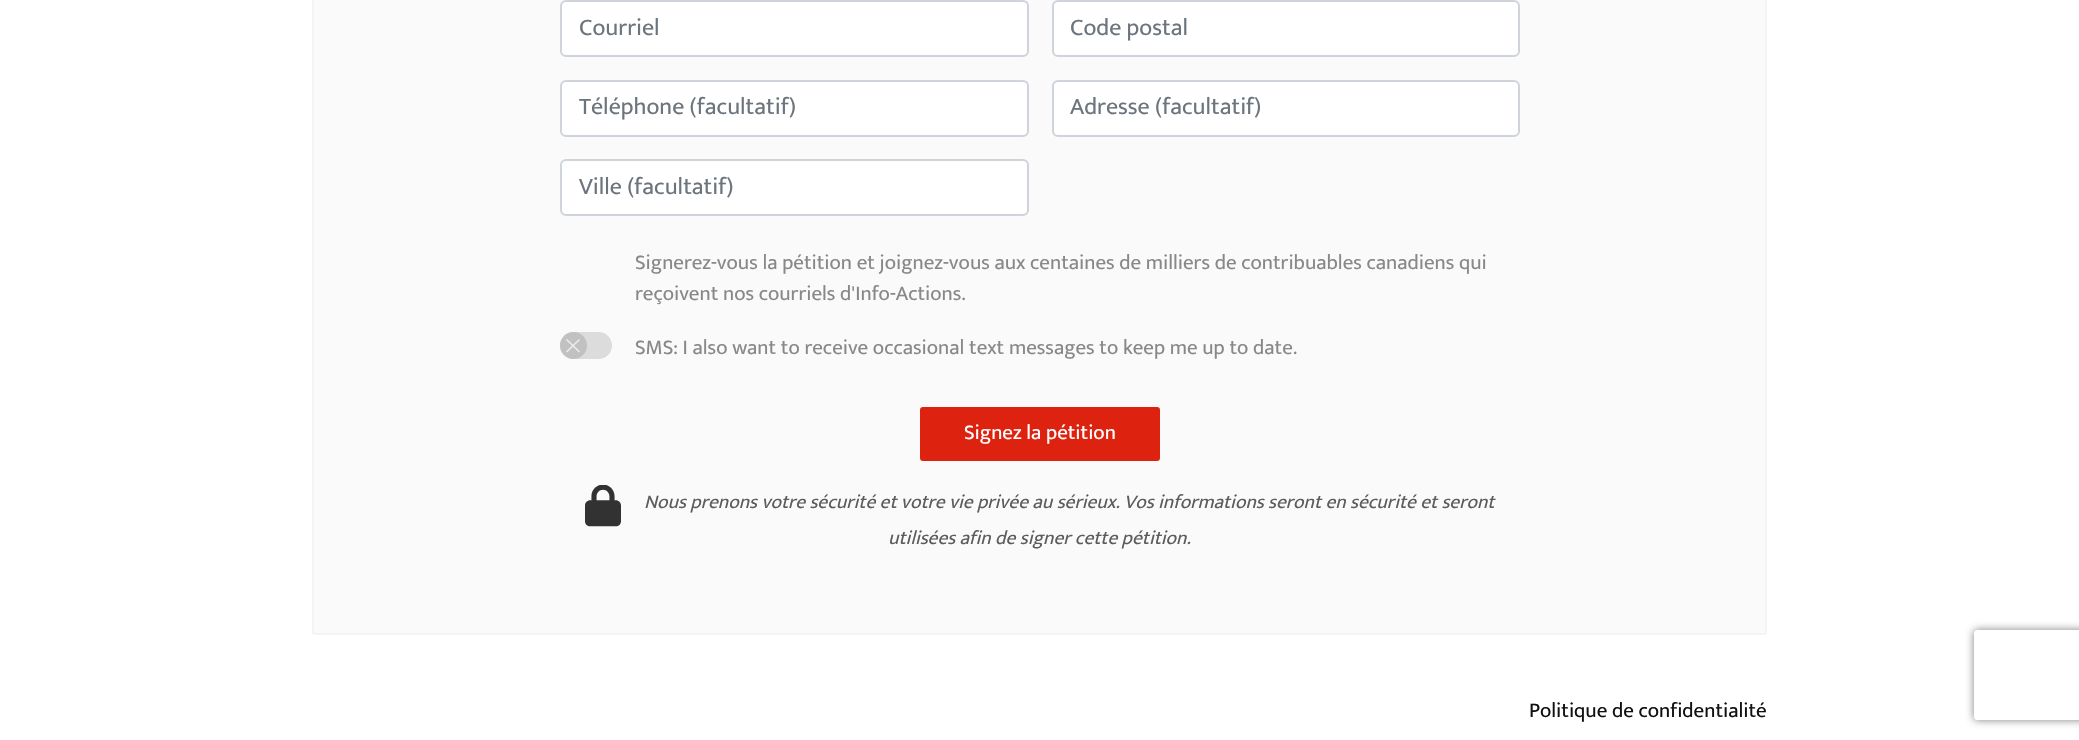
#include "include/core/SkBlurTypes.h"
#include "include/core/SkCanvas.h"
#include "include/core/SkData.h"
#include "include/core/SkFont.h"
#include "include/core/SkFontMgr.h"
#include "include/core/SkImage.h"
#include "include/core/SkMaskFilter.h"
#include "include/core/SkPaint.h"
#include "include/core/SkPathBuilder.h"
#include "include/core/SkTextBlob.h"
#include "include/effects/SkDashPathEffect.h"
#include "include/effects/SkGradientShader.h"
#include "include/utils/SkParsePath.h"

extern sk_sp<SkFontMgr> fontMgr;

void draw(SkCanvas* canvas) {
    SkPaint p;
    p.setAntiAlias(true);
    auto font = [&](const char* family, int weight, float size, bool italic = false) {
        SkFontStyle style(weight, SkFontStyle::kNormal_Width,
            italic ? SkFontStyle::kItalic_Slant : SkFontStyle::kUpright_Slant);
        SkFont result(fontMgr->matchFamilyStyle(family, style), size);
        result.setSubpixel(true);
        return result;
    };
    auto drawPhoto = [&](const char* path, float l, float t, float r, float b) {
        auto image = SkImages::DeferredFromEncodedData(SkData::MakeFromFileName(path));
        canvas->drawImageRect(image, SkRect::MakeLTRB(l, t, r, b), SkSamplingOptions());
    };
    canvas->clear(0xFFFFFFFF);
    p.setColor(0xFFFAFAFA);
    canvas->drawRoundRect(SkRect::MakeLTRB(313, -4, 1766, 634), 2, 2, p);
    p.setStyle(SkPaint::kStroke_Style);
    p.setStrokeWidth(2);
    p.setColor(0xFFF4F4F4);
    canvas->drawRoundRect(SkRect::MakeLTRB(313, -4, 1766, 634), 2, 2, p);
    p.setStyle(SkPaint::kFill_Style);
    p.setColor(0xFFFFFFFF);
    canvas->drawRoundRect(SkRect::MakeLTRB(561, 1, 1028, 56), 5, 5, p);
    p.setStyle(SkPaint::kStroke_Style);
    p.setColor(0xFFCED4DA);
    canvas->drawRoundRect(SkRect::MakeLTRB(561, 1, 1028, 56), 5, 5, p);
    auto font1 = font("Mukta", 400, 24);
    p.setStyle(SkPaint::kFill_Style);
    p.setColor(0xFF6C757D);
    canvas->drawString("Courriel", 579, 35, font1, p);
    p.setColor(0xFFFFFFFF);
    canvas->drawRoundRect(SkRect::MakeLTRB(1053, 1, 1519, 56), 5, 5, p);
    p.setStyle(SkPaint::kStroke_Style);
    p.setColor(0xFFCED4DA);
    canvas->drawRoundRect(SkRect::MakeLTRB(1053, 1, 1519, 56), 5, 5, p);
    p.setStyle(SkPaint::kFill_Style);
    p.setColor(0xFF6C757D);
    canvas->drawString("Code postal", 1070, 35, font1, p);
    p.setColor(0xFFFFFFFF);
    canvas->drawRoundRect(SkRect::MakeLTRB(561, 81, 1028, 136), 5, 5, p);
    p.setStyle(SkPaint::kStroke_Style);
    p.setColor(0xFFCED4DA);
    canvas->drawRoundRect(SkRect::MakeLTRB(561, 81, 1028, 136), 5, 5, p);
    p.setStyle(SkPaint::kFill_Style);
    p.setColor(0xFF6C757D);
    canvas->drawString("Téléphone (facultatif)", 579, 114, font1, p);
    p.setColor(0xFFFFFFFF);
    canvas->drawRoundRect(SkRect::MakeLTRB(1053, 81, 1519, 136), 5, 5, p);
    p.setStyle(SkPaint::kStroke_Style);
    p.setColor(0xFFCED4DA);
    canvas->drawRoundRect(SkRect::MakeLTRB(1053, 81, 1519, 136), 5, 5, p);
    p.setStyle(SkPaint::kFill_Style);
    p.setColor(0xFF6C757D);
    canvas->drawString("Adresse (facultatif)", 1070, 114, font1, p);
    p.setColor(0xFFFFFFFF);
    canvas->drawRoundRect(SkRect::MakeLTRB(561, 160, 1028, 215), 5, 5, p);
    p.setStyle(SkPaint::kStroke_Style);
    p.setColor(0xFFCED4DA);
    canvas->drawRoundRect(SkRect::MakeLTRB(561, 160, 1028, 215), 5, 5, p);
    p.setStyle(SkPaint::kFill_Style);
    p.setColor(0xFF6C757D);
    canvas->drawString("Ville (facultatif)", 579, 194, font1, p);
    auto font2 = font("Mukta", 400, 21);
    p.setColor(0xFF888888);
    canvas->drawString("Signerez-vous la pétition et joignez-vous aux centaines de milliers de contribuables canadiens qui", 635, 269, font2, p);
    canvas->drawString("reçoivent nos courriels d'Info-Actions.", 635, 300, font2, p);
    p.setColor(0xFFDCDCDC);
    canvas->drawRoundRect(SkRect::MakeLTRB(560, 332, 612, 359), 13.5f, 13.5f, p);
    p.setColor(0xFFC1C1C1);
    canvas->drawCircle(573.5f, 345.5f, 13.5f, p);
    p.setColor(0xFFEEEEEE);
    canvas->drawPath(SkPathBuilder().moveTo(567, 339).lineTo(580, 351.5f).lineTo(579, 352.5f).lineTo(566, 340).close().detach(), p);
    canvas->drawPath(SkPathBuilder().moveTo(566, 351.5f).lineTo(579, 339).lineTo(580, 340).lineTo(567, 352.5f).close().detach(), p);
    p.setColor(0xFF888888);
    canvas->drawString("SMS: I also want to receive occasional text messages to keep me up to date.", 635, 354, font2, p);
    p.setColor(0xFFDD230F);
    canvas->drawRoundRect(SkRect::MakeLTRB(921, 408, 1159, 460), 2, 2, p);
    p.setStyle(SkPaint::kStroke_Style);
    canvas->drawRoundRect(SkRect::MakeLTRB(921, 408, 1159, 460), 2, 2, p);
    p.setStyle(SkPaint::kFill_Style);
    p.setColor(0xFFFFFFFF);
    canvas->drawString("Signez la pétition", 964, 439, font2, p);
    drawPhoto("media/1.png", 585, 485, 621, 527);
    auto font3 = font("Mukta", 400, 19.5f, true);
    p.setColor(0xFF5C5C5C);
    canvas->drawString("Nous prenons votre sécurité et votre vie privée au sérieux. Vos informations seront en sécurité et seront", 644, 508, font3, p);
    canvas->drawString("utilisées afin de signer cette pétition.", 888, 544, font3, p);
    p.setColor(0xFF111111);
    canvas->drawString("Politique de confidentialité", 1529, 717, font2, p);
    canvas->save();
    canvas->clipPath(SkPathBuilder(SkPathFillType::kEvenOdd).moveTo(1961, 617).lineTo(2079, 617).lineTo(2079, 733).lineTo(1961, 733).close().moveTo(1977, 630).lineTo(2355, 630).cubicTo(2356.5f, 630, 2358, 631.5f, 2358, 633).lineTo(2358, 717).cubicTo(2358, 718.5f, 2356.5f, 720, 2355, 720).lineTo(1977, 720).cubicTo(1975.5f, 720, 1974, 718.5f, 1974, 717).lineTo(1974, 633).cubicTo(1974, 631.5f, 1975.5f, 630, 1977, 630).close().detach(), true);
    p.setColor(0xFF808080);
    p.setMaskFilter(SkMaskFilter::MakeBlur(kNormal_SkBlurStyle, 4));
    canvas->drawRoundRect(SkRect::MakeLTRB(1974, 630, 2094, 720), 3, 3, p);
    p.setMaskFilter(nullptr);
    canvas->restore();
}
